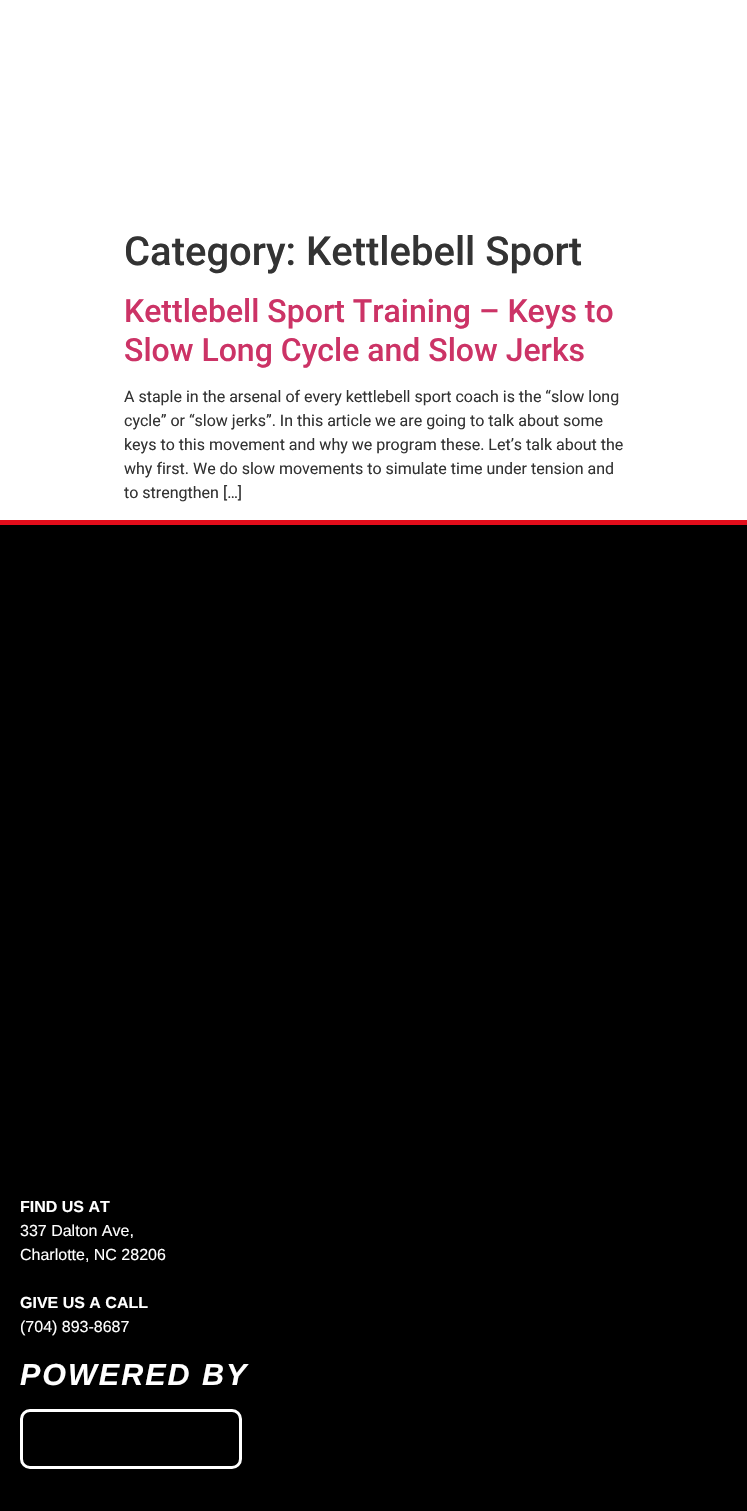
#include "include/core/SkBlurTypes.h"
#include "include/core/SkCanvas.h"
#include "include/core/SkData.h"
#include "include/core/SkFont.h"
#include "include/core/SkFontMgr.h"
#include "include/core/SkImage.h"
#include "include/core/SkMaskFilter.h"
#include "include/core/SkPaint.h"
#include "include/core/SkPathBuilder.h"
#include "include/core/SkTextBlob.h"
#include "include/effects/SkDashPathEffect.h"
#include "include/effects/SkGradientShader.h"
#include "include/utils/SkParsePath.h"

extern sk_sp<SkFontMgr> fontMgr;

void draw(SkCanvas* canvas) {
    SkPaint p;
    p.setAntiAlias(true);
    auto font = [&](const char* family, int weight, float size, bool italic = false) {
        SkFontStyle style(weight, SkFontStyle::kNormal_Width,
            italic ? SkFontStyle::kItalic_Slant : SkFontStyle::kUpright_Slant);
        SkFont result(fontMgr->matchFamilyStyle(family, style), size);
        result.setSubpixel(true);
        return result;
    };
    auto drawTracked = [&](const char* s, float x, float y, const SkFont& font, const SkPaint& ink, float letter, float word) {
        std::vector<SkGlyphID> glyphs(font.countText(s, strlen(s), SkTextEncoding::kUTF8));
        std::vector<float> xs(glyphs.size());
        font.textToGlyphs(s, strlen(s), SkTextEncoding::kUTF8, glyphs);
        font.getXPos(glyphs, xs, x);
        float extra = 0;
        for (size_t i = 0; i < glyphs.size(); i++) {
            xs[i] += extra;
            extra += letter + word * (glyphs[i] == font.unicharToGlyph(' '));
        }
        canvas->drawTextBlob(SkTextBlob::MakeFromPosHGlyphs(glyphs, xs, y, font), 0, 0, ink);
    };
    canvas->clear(0xFFFFFFFF);
    auto font1 = font("Roboto", 500, 40);
    p.setColor(0xFF333333);
    canvas->drawString("Category: Kettlebell Sport", 124, 265, font1, p);
    auto font2 = font("Roboto", 500, 32);
    p.setColor(0xFFCC3366);
    canvas->drawString("Kettlebell Sport Training – Keys to", 124, 322, font2, p);
    canvas->drawString("Slow Long Cycle and Slow Jerks", 124, 361, font2, p);
    auto font3 = font("Roboto", 400, 16);
    p.setColor(0xFF333333);
    {
        const struct { const char* s; float x, y; } items[] = {
            {"A staple in the arsenal of every kettlebell sport coach is the “slow long", 124, 402},
            {"cycle” or “slow jerks”. In this article we are going to talk about some", 124, 426},
            {"keys to this movement and why we program these. Let’s talk about the", 124, 450},
            {"why first. We do slow movements to simulate time under tension and", 124, 474},
            {"to strengthen […]", 124, 498},
        };
        for (auto [s, x, y] : items) {
            canvas->drawString(s, x, y, font3, p);
        }
    }
    p.setColor(0xFF000000);
    canvas->drawRect(SkRect::MakeLTRB(0, 525, 747, 1511), p);
    p.setColor(0xFFE30D1B);
    canvas->drawRect(SkRect::MakeLTRB(0, 520, 747, 525), p);
    auto font4 = font("Liberation Sans", 700, 16);
    p.setColor(0xFFFFFFFF);
    canvas->drawString("FIND US AT", 20, 1212, font4, p);
    auto font5 = font("Liberation Sans", 400, 16);
    canvas->drawString("337 Dalton Ave,", 20, 1236, font5, p);
    canvas->drawString("Charlotte, NC 28206", 20, 1260, font5, p);
    canvas->drawString("GIVE US A CALL", 20, 1308, font4, p);
    canvas->drawString("(704) 893-8687", 20, 1332, font5, p);
    auto font6 = font("Liberation Sans", 700, 30.5f, true);
    drawTracked("POWERED BY", 20, 1385, font6, p, 2, 0);
    p.setStyle(SkPaint::kStroke_Style);
    p.setStrokeWidth(3);
    canvas->drawRoundRect(SkRect::MakeLTRB(21.5f, 1410.5f, 240.5f, 1467.5f), 8.5f, 8.5f, p);
}
